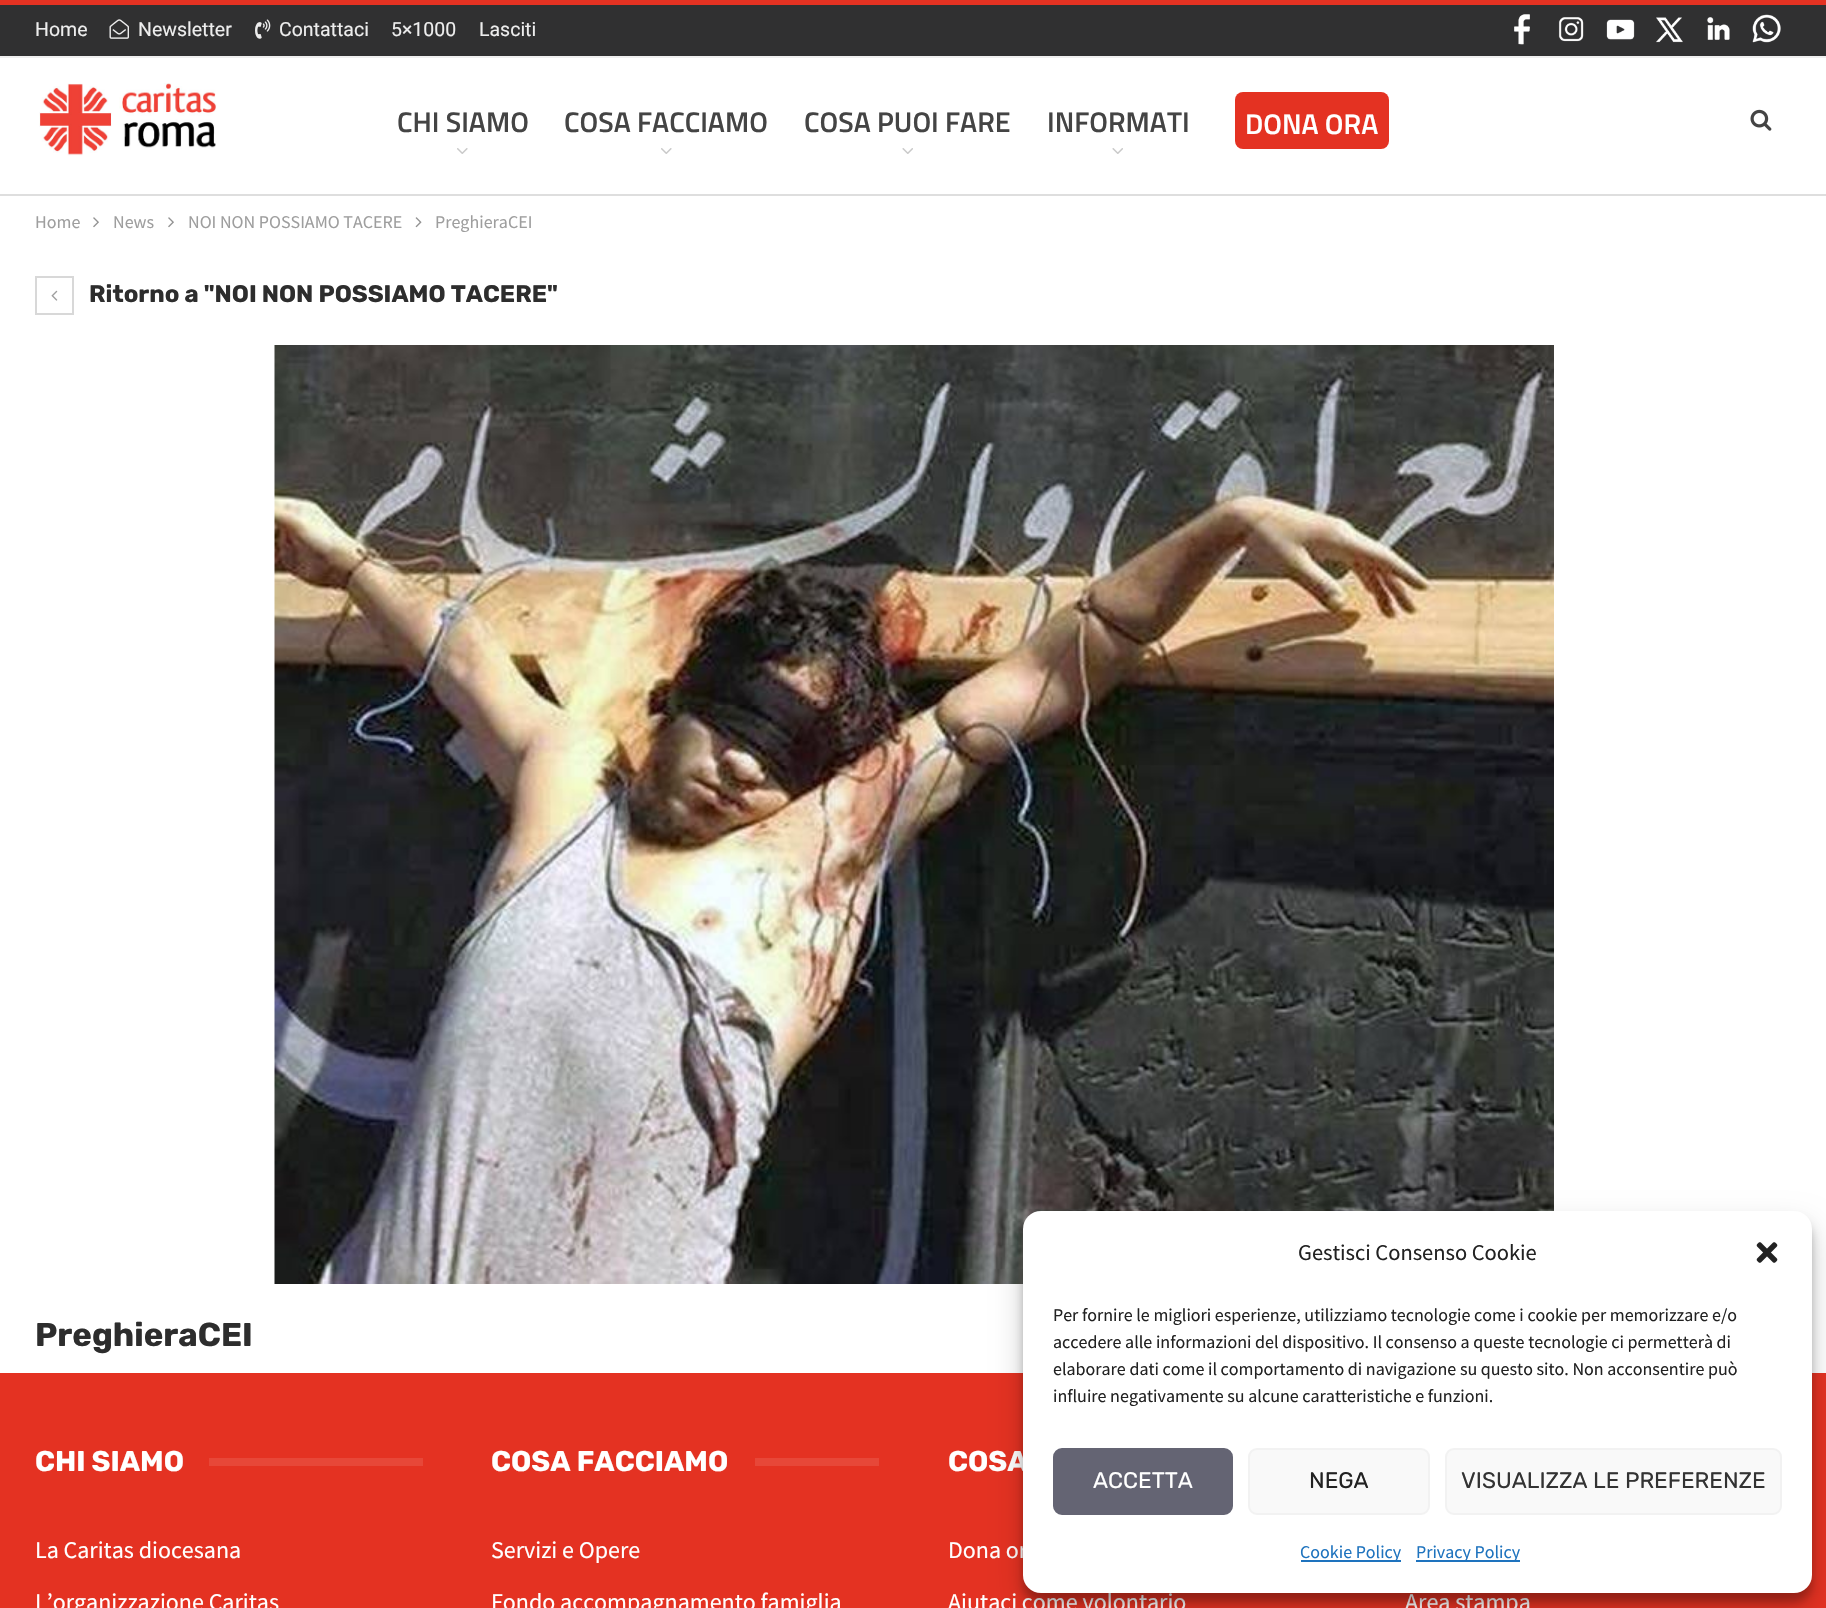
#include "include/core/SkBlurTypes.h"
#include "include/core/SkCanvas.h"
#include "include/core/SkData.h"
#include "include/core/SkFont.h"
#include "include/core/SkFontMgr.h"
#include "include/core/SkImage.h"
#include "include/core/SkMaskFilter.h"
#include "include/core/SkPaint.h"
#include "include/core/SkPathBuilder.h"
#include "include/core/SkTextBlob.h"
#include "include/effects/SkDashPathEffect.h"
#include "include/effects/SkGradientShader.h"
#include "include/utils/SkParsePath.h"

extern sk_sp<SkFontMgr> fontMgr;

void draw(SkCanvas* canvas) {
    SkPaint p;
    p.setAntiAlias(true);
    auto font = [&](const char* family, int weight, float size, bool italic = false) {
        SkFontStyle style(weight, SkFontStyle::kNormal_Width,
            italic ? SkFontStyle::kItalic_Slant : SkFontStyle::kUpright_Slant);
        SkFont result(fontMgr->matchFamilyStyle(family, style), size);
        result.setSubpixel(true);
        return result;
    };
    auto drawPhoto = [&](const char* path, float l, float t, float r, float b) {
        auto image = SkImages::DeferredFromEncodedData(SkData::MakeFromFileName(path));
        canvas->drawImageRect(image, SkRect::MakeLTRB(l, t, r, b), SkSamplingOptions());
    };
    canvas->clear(0xFFFFFFFF);
    {
        const struct { float l, t, r, b; SkColor color; } items[] = {
            {0, 0, 1826, 5, 0xFFE43222},
            {0, 194, 1826, 196, 0xFFDEDEDE},
            {0, 5, 1826, 56, 0xFF303031},
            {0, 56, 1826, 58, 0xFFEFEFEF},
        };
        for (auto [l, t, r, b, color] : items) {
            p.setColor(color);
            canvas->drawRect(SkRect::MakeLTRB(l, t, r, b), p);
        }
    }
    auto font1 = font("Roboto", 400, 19.5f);
    p.setColor(0xFFEDEDED);
    canvas->drawString("Home", 35, 36, font1, p);
    drawPhoto("media/1.png", 109, 19, 129, 39);
    canvas->drawString("Newsletter", 138, 36, font1, p);
    drawPhoto("media/2.png", 255, 19, 271, 39);
    {
        const struct { const char* s; float x, y; } items[] = {
            {"Contattaci", 279, 36},
            {"5×1000", 391, 36},
            {"Lasciti", 479, 36},
        };
        for (auto [s, x, y] : items) {
            canvas->drawString(s, x, y, font1, p);
        }
    }
    drawPhoto("media/3.png", 1514, 14, 1530, 45);
    drawPhoto("media/4.png", 1558, 17, 1584, 42);
    drawPhoto("media/5.png", 1606, 19, 1635, 40);
    drawPhoto("media/6.png", 1656, 17, 1683, 43);
    drawPhoto("media/7.png", 1707, 17, 1730, 40);
    drawPhoto("media/8.png", 1752, 14, 1781, 43);
    drawPhoto("media/9.png", 39, 83, 217, 156);
    auto font2 = font("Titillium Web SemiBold", 600, 28.5f);
    p.setColor(0xFF444444);
    canvas->drawString("CHI SIAMO", 397, 132, font2, p);
    drawPhoto("media/10.png", 457, 148, 468, 154);
    canvas->drawString("COSA FACCIAMO", 564, 132, font2, p);
    drawPhoto("media/10.png", 661, 148, 672, 154);
    canvas->drawString("COSA PUOI FARE", 804, 132, font2, p);
    drawPhoto("media/11.png", 902, 148, 913, 154);
    canvas->drawString("INFORMATI", 1047, 132, font2, p);
    drawPhoto("media/11.png", 1112, 148, 1123, 154);
    p.setColor(0xFFE43222);
    canvas->drawRoundRect(SkRect::MakeLTRB(1235, 92, 1389, 149), 8, 8, p);
    p.setColor(0xFFFFFFFF);
    canvas->drawString("DONA ORA", 1245, 134, font2, p);
    drawPhoto("media/12.png", 1750, 109, 1772, 131);
    auto font3 = font("Source Sans Pro", 400, 18);
    p.setColor(0xFF9E9E9E);
    canvas->drawString("Home", 35, 228, font3, p);
    drawPhoto("media/13.png", 93, 217, 99, 228);
    canvas->drawString("News", 113, 228, font3, p);
    drawPhoto("media/13.png", 168, 217, 174, 228);
    canvas->drawString("NOI NON POSSIAMO TACERE", 188, 228, font3, p);
    drawPhoto("media/14.png", 415, 217, 422, 228);
    canvas->drawString("PreghieraCEI", 435, 228, font3, p);
    p.setStyle(SkPaint::kStroke_Style);
    p.setStrokeWidth(2);
    p.setColor(0xFFD8D8D8);
    canvas->drawRect(SkRect::MakeLTRB(36, 277, 73, 314), p);
    drawPhoto("media/15.png", 51, 290, 58, 301);
    auto font4 = font("Rubik", 700, 24);
    p.setStyle(SkPaint::kFill_Style);
    p.setColor(0xFF2D2D2D);
    canvas->drawString("Ritorno a \"NOI NON POSSIAMO TACERE\"", 89, 302, font4, p);
    drawPhoto("media/16.png", 274, 345, 1554, 1284);
    auto font5 = font("Rubik", 700, 33);
    canvas->drawString("PreghieraCEI", 35, 1346, font5, p);
    p.setColor(0xFFE43222);
    canvas->drawRect(SkRect::MakeLTRB(0, 1373, 1826, 1608), p);
    auto font6 = font("Rubik", 700, 28.5f);
    p.setColor(0xFFFFFFFF);
    canvas->drawString("CHI SIAMO", 35, 1471, font6, p);
    p.setColor(0xFFE74738);
    canvas->drawRect(SkRect::MakeLTRB(209, 1458, 423, 1466), p);
    auto font7 = font("Source Sans Pro", 400, 24);
    p.setColor(0xFFFFFFFF);
    canvas->drawString("La Caritas diocesana", 35, 1558, font7, p);
    canvas->drawString("L’organizzazione Caritas", 35, 1610, font7, p);
    canvas->drawString("COSA FACCIAMO", 491, 1471, font6, p);
    p.setColor(0xFFE74738);
    canvas->drawRect(SkRect::MakeLTRB(755, 1458, 879, 1466), p);
    p.setColor(0xFFFFFFFF);
    canvas->drawString("Servizi e Opere", 491, 1558, font7, p);
    canvas->drawString("Fondo accompagnamento famiglia", 491, 1610, font7, p);
    canvas->drawString("COSA", 948, 1471, font6, p);
    {
        const struct { const char* s; float x, y; } items[] = {
            {"Dona or", 948, 1558},
            {"Aiutaci come volontario", 948, 1610},
            {"Area stampa", 1405, 1610},
        };
        for (auto [s, x, y] : items) {
            canvas->drawString(s, x, y, font7, p);
        }
    }
    p.setColor(0x3B000000);
    p.setMaskFilter(SkMaskFilter::MakeBlur(kNormal_SkBlurStyle, 4.5f));
    canvas->drawRoundRect(SkRect::MakeLTRB(1023, 1220, 1812, 1602), 18, 18, p);
    p.setMaskFilter(nullptr);
    p.setColor(0x30000000);
    p.setMaskFilter(SkMaskFilter::MakeBlur(kNormal_SkBlurStyle, 15));
    canvas->drawRoundRect(SkRect::MakeLTRB(1023, 1226, 1812, 1608), 18, 18, p);
    p.setMaskFilter(nullptr);
    p.setColor(0xFFFFFFFF);
    canvas->drawRoundRect(SkRect::MakeLTRB(1023, 1211, 1812, 1593), 18, 18, p);
    auto font8 = font("Source Sans Pro", 400, 22.5f);
    p.setColor(0xFF222222);
    canvas->drawString("Gestisci Consenso Cookie", 1298, 1260, font8, p);
    drawPhoto("media/17.png", 1756, 1242, 1778, 1263);
    {
        const struct { const char* s; float x, y; } items[] = {
            {"Per fornire le migliori esperienze, utilizziamo tecnologie come i cookie per memorizzare e/o", 1053, 1321},
            {"accedere alle informazioni del dispositivo. Il consenso a queste tecnologie ci permetterà di", 1053, 1348},
            {"elaborare dati come il comportamento di navigazione su questo sito. Non acconsentire può", 1053, 1375},
            {"influire negativamente su alcune caratteristiche e funzioni.", 1053, 1402},
        };
        for (auto [s, x, y] : items) {
            canvas->drawString(s, x, y, font3, p);
        }
    }
    p.setColor(0xFF646473);
    canvas->drawRoundRect(SkRect::MakeLTRB(1054, 1449, 1232, 1514), 8, 8, p);
    p.setStyle(SkPaint::kStroke_Style);
    canvas->drawRoundRect(SkRect::MakeLTRB(1054, 1449, 1232, 1514), 8, 8, p);
    auto font9 = font("Rubik", 400, 22.5f);
    p.setStyle(SkPaint::kFill_Style);
    p.setColor(0xFFFFFFFF);
    canvas->drawString("ACCETTA", 1093, 1488, font9, p);
    p.setColor(0xFFF9F9F9);
    canvas->drawRoundRect(SkRect::MakeLTRB(1249, 1449, 1429, 1514), 8, 8, p);
    p.setStyle(SkPaint::kStroke_Style);
    p.setColor(0xFFF2F2F2);
    canvas->drawRoundRect(SkRect::MakeLTRB(1249, 1449, 1429, 1514), 8, 8, p);
    p.setStyle(SkPaint::kFill_Style);
    p.setColor(0xFF222222);
    canvas->drawString("NEGA", 1309, 1488, font9, p);
    p.setColor(0xFFF9F9F9);
    canvas->drawRoundRect(SkRect::MakeLTRB(1446, 1449, 1781, 1514), 8, 8, p);
    p.setStyle(SkPaint::kStroke_Style);
    p.setColor(0xFFF2F2F2);
    canvas->drawRoundRect(SkRect::MakeLTRB(1446, 1449, 1781, 1514), 8, 8, p);
    p.setStyle(SkPaint::kFill_Style);
    p.setColor(0xFF333333);
    canvas->drawString("VISUALIZZA LE PREFERENZE", 1461, 1488, font9, p);
    p.setColor(0xFF1E73BE);
    canvas->drawRect(SkRect::MakeLTRB(1301, 1560, 1401, 1562), p);
    canvas->drawString("Cookie Policy", 1300, 1558, font3, p);
    canvas->drawRect(SkRect::MakeLTRB(1416, 1560, 1520, 1562), p);
    canvas->drawString("Privacy Policy", 1416, 1558, font3, p);
}
